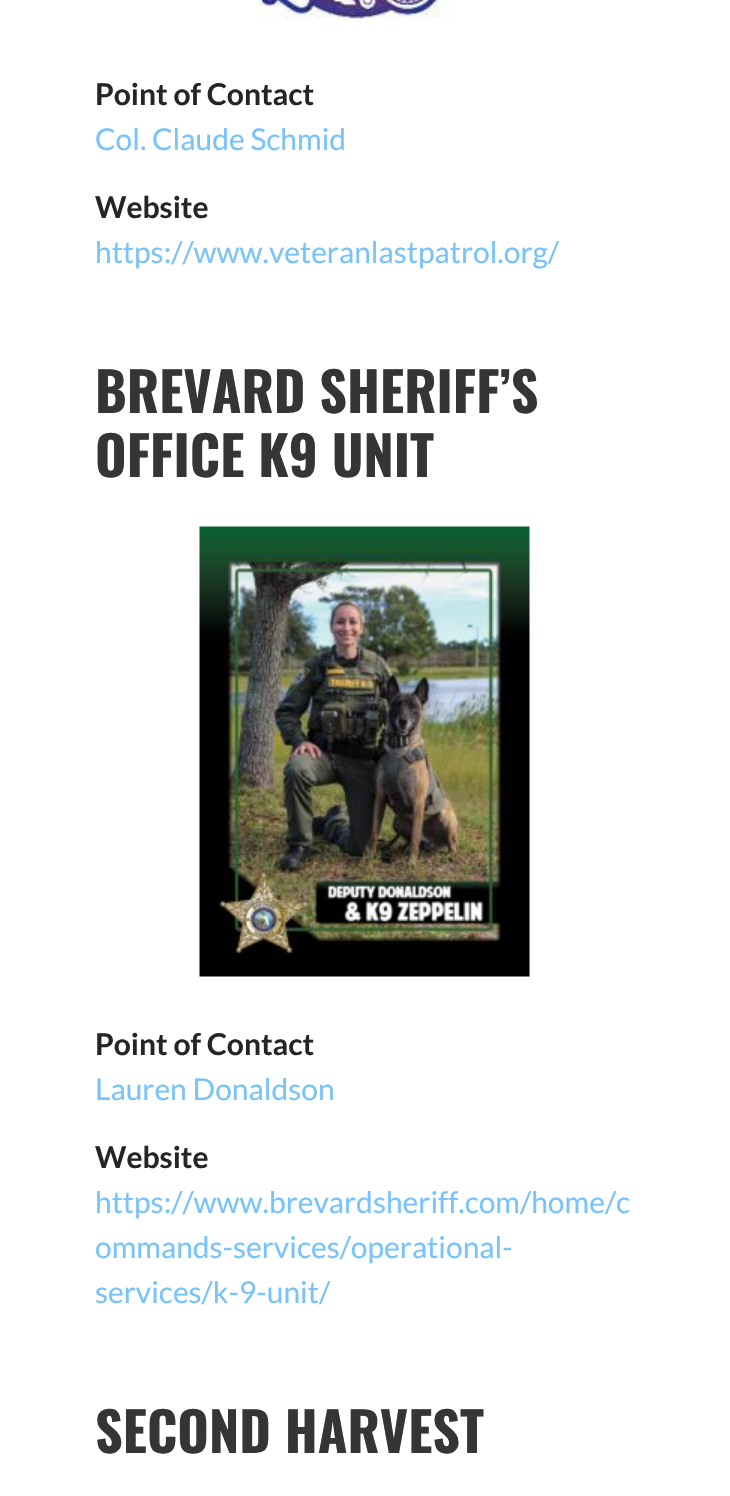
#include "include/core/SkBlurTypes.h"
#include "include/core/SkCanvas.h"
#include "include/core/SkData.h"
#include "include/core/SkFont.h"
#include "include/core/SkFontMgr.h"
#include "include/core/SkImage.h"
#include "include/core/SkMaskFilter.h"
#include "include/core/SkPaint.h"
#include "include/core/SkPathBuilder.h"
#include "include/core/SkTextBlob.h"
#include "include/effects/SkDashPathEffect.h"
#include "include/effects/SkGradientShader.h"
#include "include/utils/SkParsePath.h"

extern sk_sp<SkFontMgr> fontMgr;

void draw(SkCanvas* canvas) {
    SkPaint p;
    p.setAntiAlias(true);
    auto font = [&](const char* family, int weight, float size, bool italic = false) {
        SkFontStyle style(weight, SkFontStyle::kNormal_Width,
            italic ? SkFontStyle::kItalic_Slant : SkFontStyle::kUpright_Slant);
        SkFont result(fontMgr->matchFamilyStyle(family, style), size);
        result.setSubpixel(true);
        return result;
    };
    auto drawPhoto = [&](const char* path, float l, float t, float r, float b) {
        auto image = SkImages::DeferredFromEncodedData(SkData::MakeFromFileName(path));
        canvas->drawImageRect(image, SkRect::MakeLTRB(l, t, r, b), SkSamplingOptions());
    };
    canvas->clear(0xFFFFFFFF);
    drawPhoto("media/1.png", 259, 0, 452, 19);
    auto font1 = font("Lato", 700, 30);
    p.setColor(0xFF252525);
    canvas->drawString("Point of Contact", 95, 105, font1, p);
    auto font2 = font("Lato", 400, 30);
    p.setColor(0xFF78C3FB);
    canvas->drawString("Col. Claude Schmid", 95, 150, font2, p);
    p.setColor(0xFF252525);
    canvas->drawString("Website", 95, 218, font1, p);
    p.setColor(0xFF78C3FB);
    canvas->drawString("https://www.veteranlastpatrol.org/", 95, 263, font2, p);
    auto font3 = font("Oswald", 700, 54);
    p.setColor(0xFF353535);
    canvas->drawString("BREVARD SHERIFF’S", 95, 413, font3, p);
    canvas->drawString("OFFICE K9 UNIT", 95, 477, font3, p);
    drawPhoto("media/2.png", 199, 526, 530, 977);
    p.setColor(0xFF252525);
    canvas->drawString("Point of Contact", 95, 1055, font1, p);
    p.setColor(0xFF78C3FB);
    canvas->drawString("Lauren Donaldson", 95, 1100, font2, p);
    p.setColor(0xFF252525);
    canvas->drawString("Website", 95, 1168, font1, p);
    p.setColor(0xFF78C3FB);
    {
        const struct { const char* s; float x, y; } items[] = {
            {"https://www.brevardsheriff.com/home/c", 95, 1213},
            {"ommands-services/operational-", 95, 1258},
            {"services/k-9-unit/", 95, 1303},
        };
        for (auto [s, x, y] : items) {
            canvas->drawString(s, x, y, font2, p);
        }
    }
    p.setColor(0xFF353535);
    canvas->drawString("SECOND HARVEST", 95, 1453, font3, p);
}
